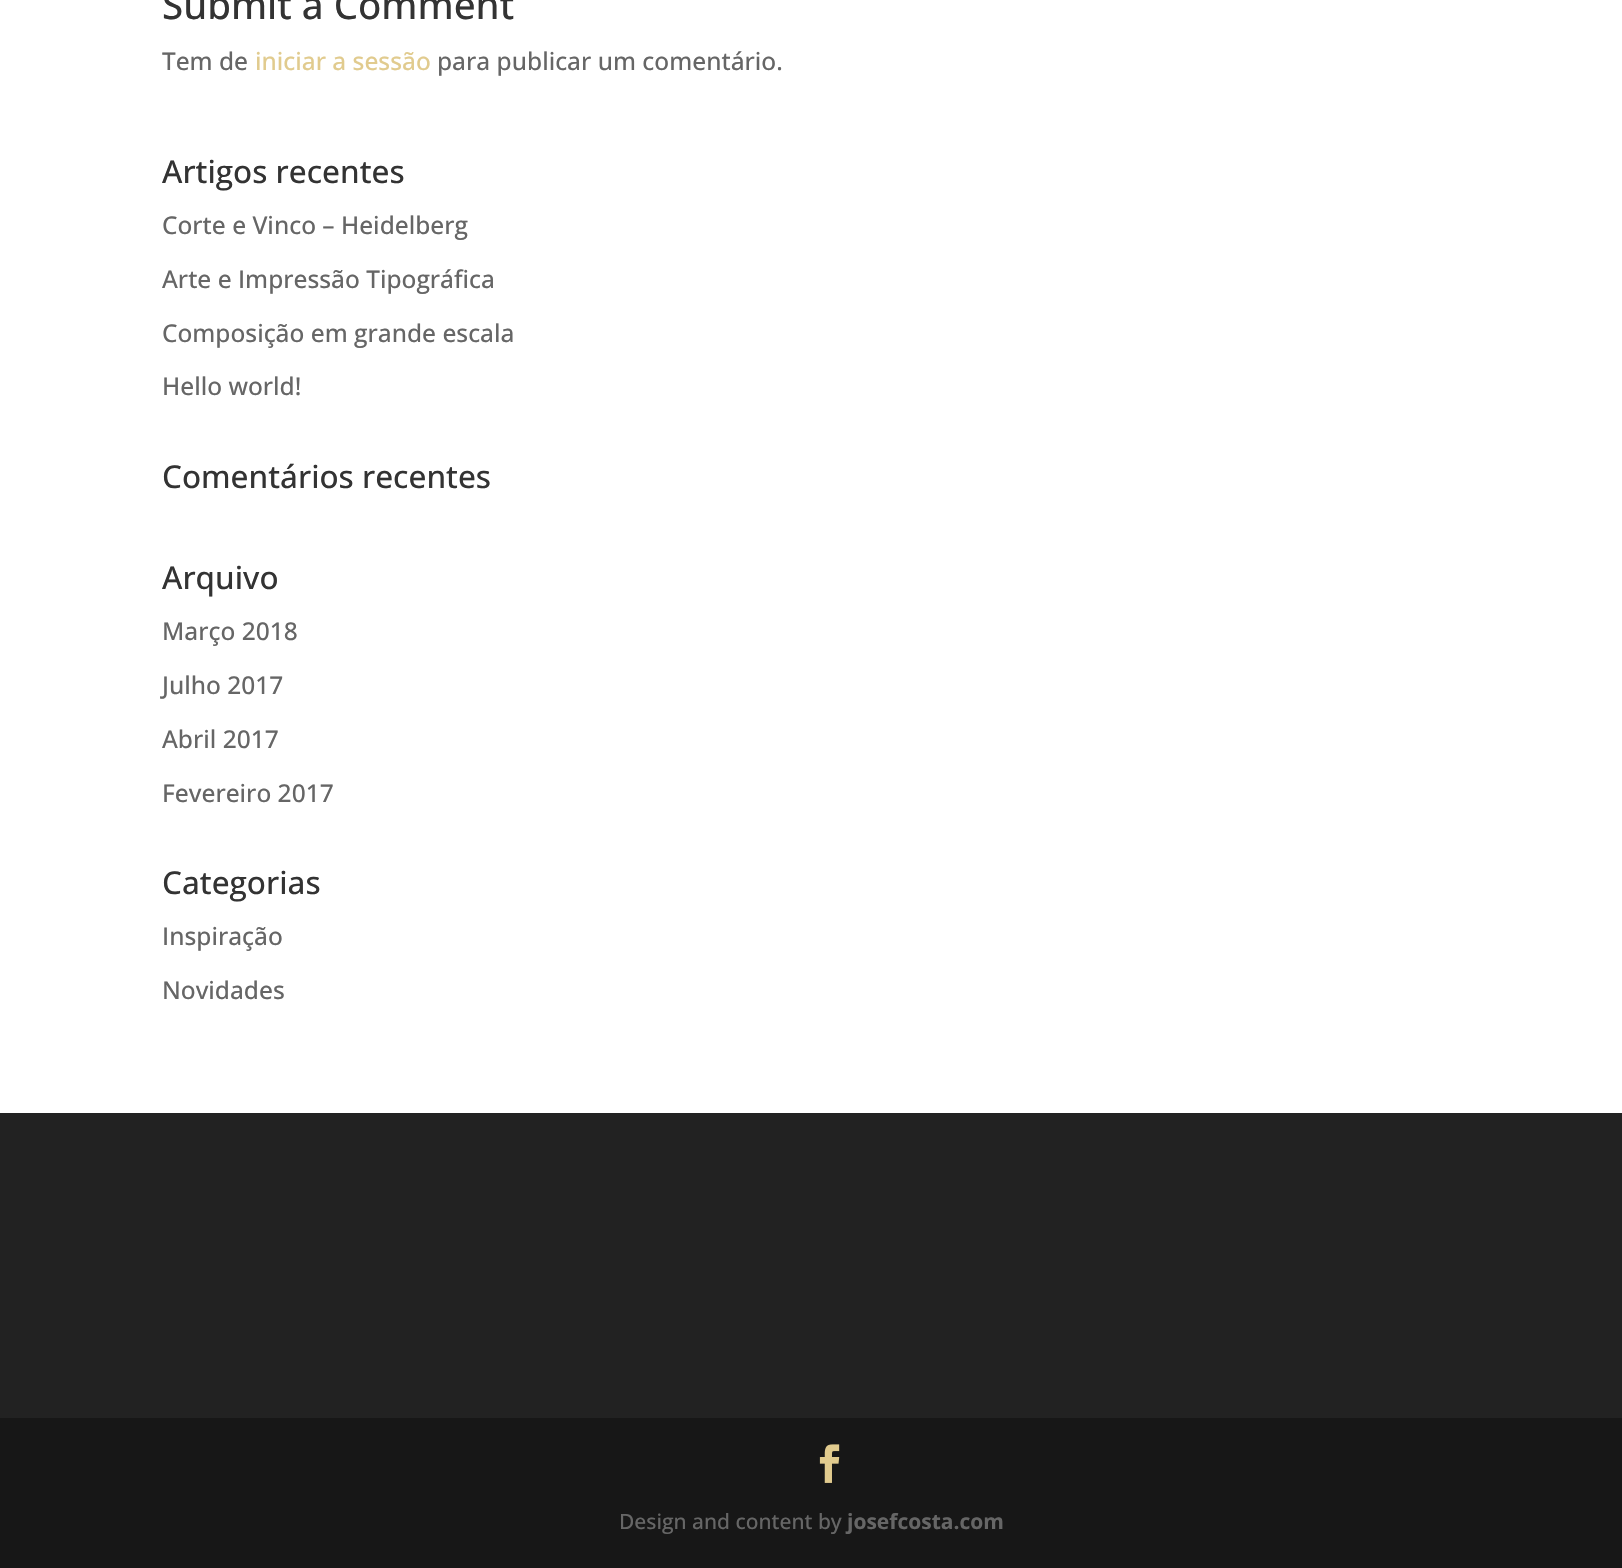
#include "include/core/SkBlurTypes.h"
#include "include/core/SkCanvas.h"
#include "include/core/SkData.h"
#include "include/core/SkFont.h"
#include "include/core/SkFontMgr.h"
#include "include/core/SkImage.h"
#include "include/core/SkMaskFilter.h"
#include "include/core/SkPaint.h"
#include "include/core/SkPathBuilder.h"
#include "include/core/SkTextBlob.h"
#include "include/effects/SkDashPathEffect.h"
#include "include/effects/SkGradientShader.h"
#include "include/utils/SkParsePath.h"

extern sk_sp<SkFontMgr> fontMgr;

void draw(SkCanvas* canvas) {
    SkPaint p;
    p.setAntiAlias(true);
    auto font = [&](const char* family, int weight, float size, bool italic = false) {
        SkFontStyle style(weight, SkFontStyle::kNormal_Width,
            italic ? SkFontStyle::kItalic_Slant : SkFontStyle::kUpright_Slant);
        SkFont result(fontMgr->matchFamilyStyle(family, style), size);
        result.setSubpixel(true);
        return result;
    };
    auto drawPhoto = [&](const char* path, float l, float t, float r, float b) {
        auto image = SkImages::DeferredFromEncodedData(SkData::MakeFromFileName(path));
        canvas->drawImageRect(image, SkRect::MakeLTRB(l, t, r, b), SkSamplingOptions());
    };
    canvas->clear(0xFFFFFFFF);
    auto font1 = font("Open Sans", 500, 38.5f);
    p.setColor(0xFF333333);
    canvas->drawString("Submit a Comment", 162, 19, font1, p);
    auto font2 = font("Open Sans", 500, 24.5f);
    p.setColor(0xFF666666);
    canvas->drawString("Tem de", 162, 70, font2, p);
    p.setColor(0xFFE1CB8E);
    canvas->drawString("iniciar a sessão", 255, 70, font2, p);
    p.setColor(0xFF666666);
    canvas->drawString("para publicar um comentário.", 437, 70, font2, p);
    auto font3 = font("Open Sans", 500, 31.5f);
    p.setColor(0xFF333333);
    canvas->drawString("Artigos recentes", 162, 183, font3, p);
    p.setColor(0xFF666666);
    {
        const struct { const char* s; float x, y; } items[] = {
            {"Corte e Vinco – Heidelberg", 162, 234},
            {"Arte e Impressão Tipográfica", 162, 288},
            {"Composição em grande escala", 162, 342},
            {"Hello world!", 162, 395},
        };
        for (auto [s, x, y] : items) {
            canvas->drawString(s, x, y, font2, p);
        }
    }
    p.setColor(0xFF333333);
    canvas->drawString("Comentários recentes", 162, 488, font3, p);
    canvas->drawString("Arquivo", 162, 589, font3, p);
    p.setColor(0xFF666666);
    {
        const struct { const char* s; float x, y; } items[] = {
            {"Março 2018", 162, 640},
            {"Julho 2017", 162, 694},
            {"Abril 2017", 162, 748},
            {"Fevereiro 2017", 162, 802},
        };
        for (auto [s, x, y] : items) {
            canvas->drawString(s, x, y, font2, p);
        }
    }
    p.setColor(0xFF333333);
    canvas->drawString("Categorias", 162, 894, font3, p);
    p.setColor(0xFF666666);
    canvas->drawString("Inspiração", 162, 945, font2, p);
    canvas->drawString("Novidades", 162, 999, font2, p);
    p.setColor(0xFF222222);
    canvas->drawRect(SkRect::MakeLTRB(0, 1113, 1622, 1418), p);
    p.setColor(0xFF171717);
    canvas->drawRect(SkRect::MakeLTRB(0, 1418, 1622, 1568), p);
    drawPhoto("media/1.png", 819, 1444, 840, 1483);
    auto font4 = font("Open Sans", 500, 21);
    p.setColor(0xFF666666);
    canvas->drawString("Design and content by", 619, 1529, font4, p);
    auto font5 = font("Open Sans", 700, 21);
    canvas->drawString("josefcosta.com", 847, 1529, font5, p);
}
